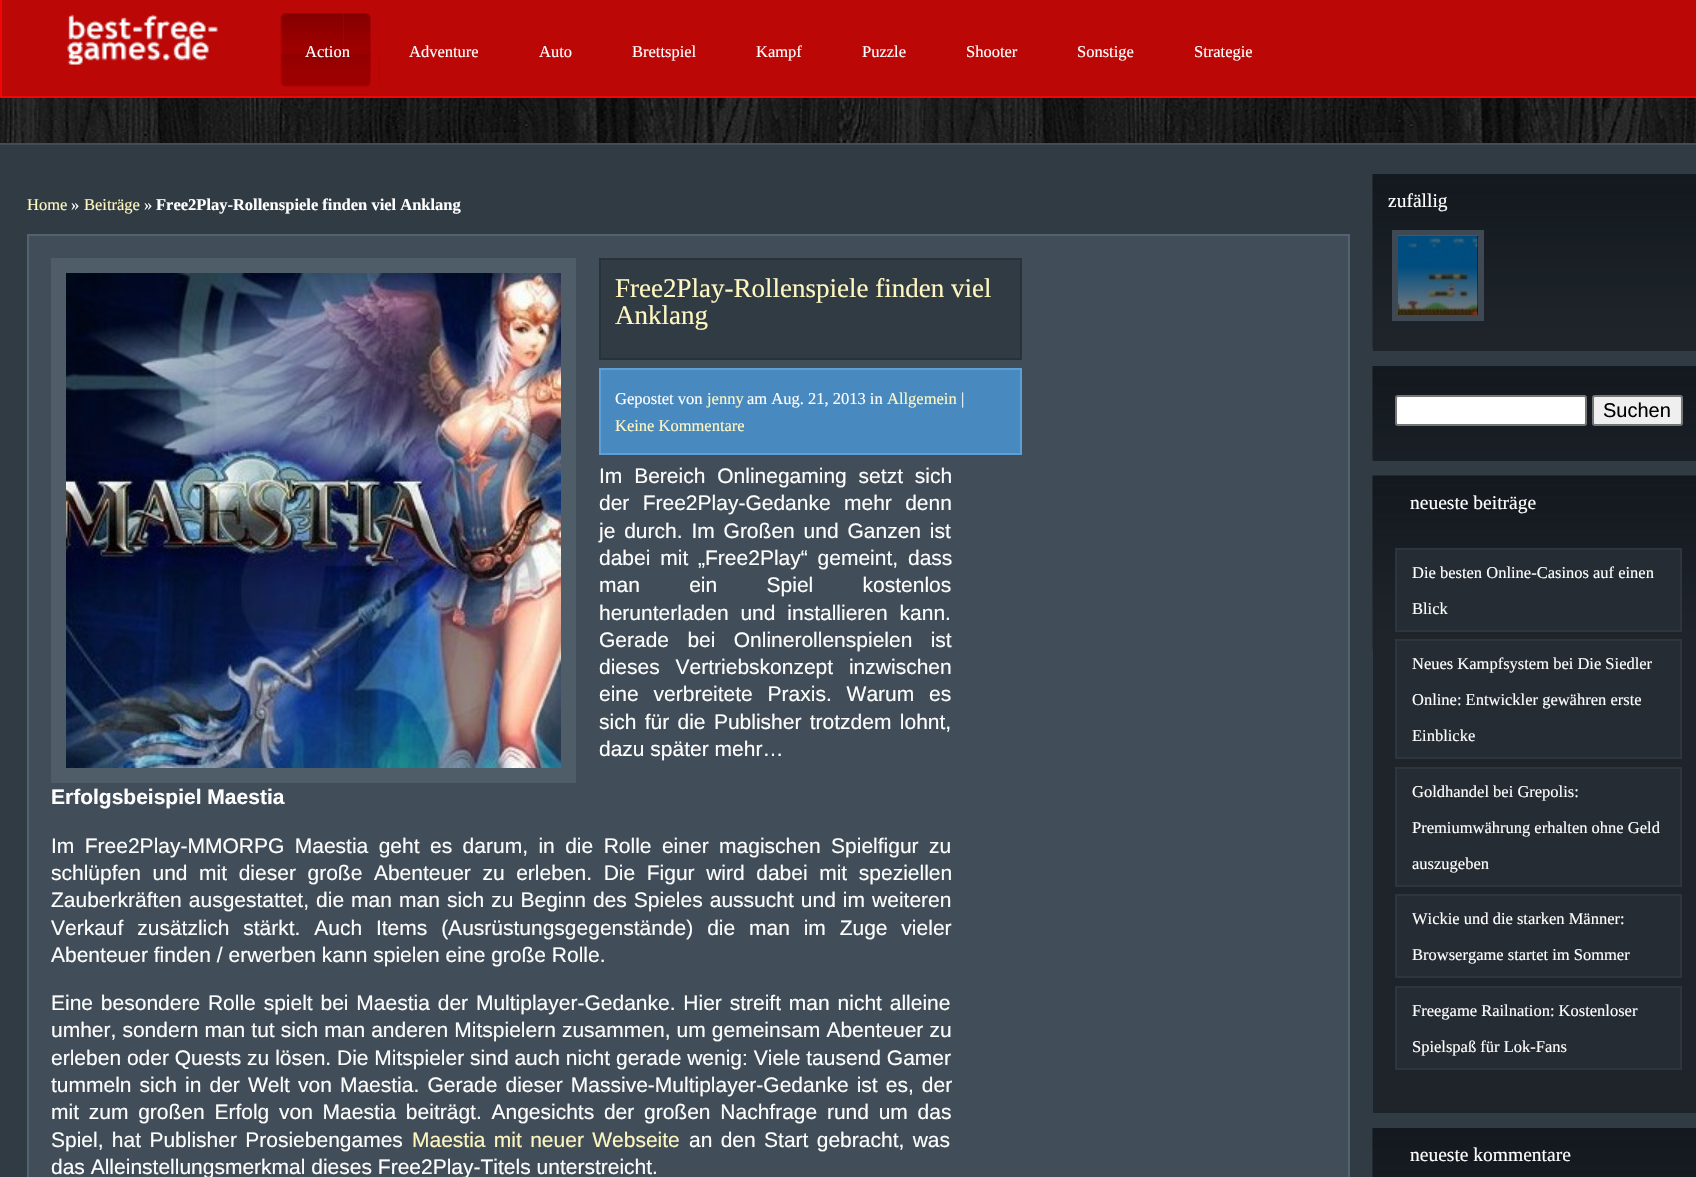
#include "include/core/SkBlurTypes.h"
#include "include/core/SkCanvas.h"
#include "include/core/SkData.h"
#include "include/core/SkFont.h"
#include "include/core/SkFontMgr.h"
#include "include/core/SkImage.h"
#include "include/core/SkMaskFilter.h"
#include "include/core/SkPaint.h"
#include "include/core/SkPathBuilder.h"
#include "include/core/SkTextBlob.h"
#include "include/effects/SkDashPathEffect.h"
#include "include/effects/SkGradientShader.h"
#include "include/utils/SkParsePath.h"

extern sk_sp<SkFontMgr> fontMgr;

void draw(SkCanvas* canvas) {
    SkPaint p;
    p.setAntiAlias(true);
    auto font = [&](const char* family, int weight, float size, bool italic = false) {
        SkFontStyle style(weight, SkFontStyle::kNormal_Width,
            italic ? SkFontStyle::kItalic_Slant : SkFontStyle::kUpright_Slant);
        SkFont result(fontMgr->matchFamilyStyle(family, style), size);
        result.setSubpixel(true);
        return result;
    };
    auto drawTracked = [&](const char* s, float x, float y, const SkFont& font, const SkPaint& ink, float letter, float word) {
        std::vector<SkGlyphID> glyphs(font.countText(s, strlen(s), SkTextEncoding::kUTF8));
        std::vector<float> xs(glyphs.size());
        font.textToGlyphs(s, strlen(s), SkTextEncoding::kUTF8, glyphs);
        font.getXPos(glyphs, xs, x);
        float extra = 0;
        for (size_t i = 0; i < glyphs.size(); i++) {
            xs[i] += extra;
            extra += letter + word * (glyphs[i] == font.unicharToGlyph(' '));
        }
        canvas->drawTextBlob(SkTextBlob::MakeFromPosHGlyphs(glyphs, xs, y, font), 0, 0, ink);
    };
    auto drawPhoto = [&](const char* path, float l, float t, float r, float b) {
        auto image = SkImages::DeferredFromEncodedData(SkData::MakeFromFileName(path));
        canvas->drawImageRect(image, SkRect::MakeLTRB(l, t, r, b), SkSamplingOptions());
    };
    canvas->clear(0xFFFFFFFF);
    drawPhoto("media/1.png", 0, 98, 1696, 143);
    p.setColor(0xFFBC0707);
    canvas->drawRect(SkRect::MakeLTRB(1, -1, 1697, 97), p);
    p.setStyle(SkPaint::kStroke_Style);
    p.setStrokeWidth(2);
    p.setColor(0xFFF30505);
    canvas->drawRect(SkRect::MakeLTRB(1, -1, 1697, 97), p);
    drawPhoto("media/2.png", 67, 14, 218, 65);
    drawPhoto("media/3.png", 343, 13, 371, 95);
    drawPhoto("media/4.png", 280, 13, 344, 95);
    drawPhoto("media/5.png", 280, 54, 380, 95);
    drawPhoto("media/6.png", 367, 54, 380, 87);
    auto font1 = font("Liberation Serif", 400, 16.5f);
    p.setStyle(SkPaint::kFill_Style);
    p.setColor(0xFFFFFFFF);
    {
        const struct { const char* s; float x, y; } items[] = {
            {"Adventure", 409, 57},
            {"Brettspiel", 632, 57},
            {"Kampf", 756, 57},
            {"Puzzle", 862, 57},
            {"Shooter", 966, 57},
            {"Action", 305, 57},
            {"Auto", 539, 57},
            {"Sonstige", 1077, 57},
            {"Strategie", 1194, 57},
        };
        for (auto [s, x, y] : items) {
            canvas->drawString(s, x, y, font1, p);
        }
    }
    p.setColor(0xFF313B44);
    canvas->drawRect(SkRect::MakeLTRB(-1, 144, 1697, 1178), p);
    p.setStyle(SkPaint::kStroke_Style);
    p.setColor(0xFF414E59);
    canvas->drawRect(SkRect::MakeLTRB(-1, 144, 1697, 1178), p);
    p.setStyle(SkPaint::kFill_Style);
    p.setColor(0xFFFFF7C0);
    canvas->drawString("Home", 27, 210, font1, p);
    p.setColor(0xFFFFFFFF);
    canvas->drawString("»", 71, 210, font1, p);
    p.setColor(0xFFFFF7C0);
    canvas->drawString("Beiträge", 84, 210, font1, p);
    p.setColor(0xFFFFFFFF);
    canvas->drawString("»", 144, 210, font1, p);
    auto font2 = font("Liberation Serif", 700, 16.5f);
    canvas->drawString("Free2Play-Rollenspiele finden viel Anklang", 156, 210, font2, p);
    p.setColor(0xFF414E59);
    canvas->drawRect(SkRect::MakeLTRB(28, 235, 1349, 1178), p);
    p.setStyle(SkPaint::kStroke_Style);
    p.setColor(0xFF526270);
    canvas->drawRect(SkRect::MakeLTRB(28, 235, 1349, 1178), p);
    p.setStrokeWidth(15);
    p.setColor(0xFF4F5D69);
    canvas->drawRect(SkRect::MakeLTRB(58.5f, 265.5f, 568.5f, 775.5f), p);
    drawPhoto("media/7.png", 66, 273, 561, 768);
    p.setStyle(SkPaint::kFill_Style);
    p.setColor(0xFF313B44);
    canvas->drawRect(SkRect::MakeLTRB(600, 259, 1021, 359), p);
    p.setStyle(SkPaint::kStroke_Style);
    p.setStrokeWidth(2);
    p.setColor(0xFF29323A);
    canvas->drawRect(SkRect::MakeLTRB(600, 259, 1021, 359), p);
    auto font3 = font("Liberation Serif", 400, 27);
    p.setStyle(SkPaint::kFill_Style);
    p.setColor(0xFFFFF7C0);
    canvas->drawString("Free2Play-Rollenspiele finden viel", 615, 297, font3, p);
    canvas->drawString("Anklang", 615, 324, font3, p);
    p.setColor(0xFF4889C0);
    canvas->drawRect(SkRect::MakeLTRB(600, 369, 1021, 454), p);
    p.setStyle(SkPaint::kStroke_Style);
    p.setColor(0xFF5D9FD7);
    canvas->drawRect(SkRect::MakeLTRB(600, 369, 1021, 454), p);
    p.setStyle(SkPaint::kFill_Style);
    p.setColor(0xFFFFFFFF);
    canvas->drawString("Gepostet von", 615, 404, font1, p);
    p.setColor(0xFFFFF7C0);
    canvas->drawString("jenny", 707, 404, font1, p);
    p.setColor(0xFFFFFFFF);
    canvas->drawString("am Aug. 21, 2013 in", 747, 404, font1, p);
    p.setColor(0xFFFFF7C0);
    canvas->drawString("Allgemein", 887, 404, font1, p);
    p.setColor(0xFFFFFFFF);
    canvas->drawString("|", 961, 404, font1, p);
    p.setColor(0xFFFFF7C0);
    canvas->drawString("Keine Kommentare", 615, 431, font1, p);
    auto font4 = font("Liberation Sans", 400, 21);
    p.setColor(0xFFFFFFFF);
    drawTracked("Im Bereich Onlinegaming setzt sich", 599, 483, font4, p, 0, 6);
    drawTracked("der Free2Play-Gedanke mehr denn", 599, 510, font4, p, 0, 7.5f);
    drawTracked("je durch. Im Großen und Ganzen ist", 599, 538, font4, p, 0, 3);
    drawTracked("dabei mit „Free2Play“ gemeint, dass", 599, 565, font4, p, 0, 4);
    drawTracked("man ein Spiel kostenlos", 599, 592, font4, p, 0, 43.5f);
    drawTracked("herunterladen und installieren kann.", 599, 620, font4, p, 0, 6);
    drawTracked("Gerade bei Onlinerollenspielen ist", 599, 647, font4, p, 0, 12.5f);
    drawTracked("dieses Vertriebskonzept inzwischen", 599, 674, font4, p, 0, 10);
    drawTracked("eine verbreitete Praxis. Warum es", 599, 701, font4, p, 0, 9);
    drawTracked("sich für die Publisher trotzdem lohnt,", 599, 729, font4, p, 0, 2.5f);
    canvas->drawString("dazu später mehr…", 599, 756, font4, p);
    auto font5 = font("Liberation Sans", 700, 21);
    canvas->drawString("Erfolgsbeispiel Maestia", 51, 804, font5, p);
    drawTracked("Im Free2Play-MMORPG Maestia geht es darum, in die Rolle einer magischen Spielfigur zu", 51, 853, font4, p, 0, 4.6f);
    drawTracked("schlüpfen und mit dieser große Abenteuer zu erleben. Die Figur wird dabei mit speziellen", 51, 880, font4, p, 0, 5.75f);
    drawTracked("Zauberkräften ausgestattet, die man man sich zu Beginn des Spieles aussucht und im weiteren", 51, 907, font4, p, 0, 1.2f);
    drawTracked("Verkauf zusätzlich stärkt. Auch Items (Ausrüstungsgegenstände) die man im Zuge vieler", 51, 935, font4, p, 0, 8);
    canvas->drawString("Abenteuer finden / erwerben kann spielen eine große Rolle.", 51, 962, font4, p);
    drawTracked("Eine besondere Rolle spielt bei Maestia der Multiplayer-Gedanke. Hier streift man nicht alleine", 51, 1010, font4, p, 0, 2);
    drawTracked("umher, sondern man tut sich man anderen Mitspielern zusammen, um gemeinsam Abenteuer zu", 51, 1037, font4, p, 0, 0.25f);
    canvas->drawString("erleben oder Quests zu lösen. Die Mitspieler sind auch nicht gerade wenig: Viele tausend Gamer", 51, 1065, font4, p);
    drawTracked("tummeln sich in der Welt von Maestia. Gerade dieser Massive-Multiplayer-Gedanke ist es, der", 51, 1092, font4, p, 0, 2.25f);
    drawTracked("mit zum großen Erfolg von Maestia beiträgt. Angesichts der großen Nachfrage rund um das", 51, 1119, font4, p, 0, 3.9f);
    drawTracked("Spiel, hat Publisher Prosiebengames", 51, 1147, font4, p, 0, 2.5f);
    p.setColor(0xFFFFF7C0);
    drawTracked("Maestia mit neuer Webseite", 412, 1147, font4, p, 0, 2.5f);
    p.setColor(0xFFFFFFFF);
    drawTracked("an den Start gebracht, was", 689, 1147, font4, p, 0, 2.5f);
    canvas->drawString("das Alleinstellungsmerkmal dieses Free2Play-Titels unterstreicht.", 51, 1174, font4, p);
    p.setColor(0xFF1E242A);
    canvas->drawRect(SkRect::MakeLTRB(1373, 348, 1696, 351), p);
    drawPhoto("media/8.png", 1372, 174, 1696, 348);
    auto font6 = font("Liberation Serif", 400, 19.5f);
    p.setColor(0xFFFFFFFF);
    canvas->drawString("zufällig", 1388, 207, font6, p);
    p.setColor(0xFF000000);
    canvas->drawRect(SkRect::MakeLTRB(1395, 233, 1481, 318), p);
    p.setStyle(SkPaint::kStroke_Style);
    p.setStrokeWidth(6);
    p.setColor(0xFF3E4953);
    canvas->drawRect(SkRect::MakeLTRB(1395, 233, 1481, 318), p);
    drawPhoto("media/9.png", 1398, 235, 1478, 315);
    p.setStyle(SkPaint::kFill_Style);
    p.setColor(0xFF1E242A);
    canvas->drawRect(SkRect::MakeLTRB(1373, 460, 1696, 461), p);
    drawPhoto("media/10.png", 1372, 366, 1696, 461);
    p.setColor(0xFFFFFFFF);
    canvas->drawRoundRect(SkRect::MakeLTRB(1396, 396, 1586, 425), 2, 2, p);
    p.setStyle(SkPaint::kStroke_Style);
    p.setStrokeWidth(2);
    p.setColor(0xFF767676);
    canvas->drawRoundRect(SkRect::MakeLTRB(1396, 396, 1586, 425), 2, 2, p);
    p.setStyle(SkPaint::kFill_Style);
    p.setColor(0xFFEFEFEF);
    canvas->drawRoundRect(SkRect::MakeLTRB(1593, 396, 1682, 425), 2, 2, p);
    p.setStyle(SkPaint::kStroke_Style);
    p.setColor(0xFF767676);
    canvas->drawRoundRect(SkRect::MakeLTRB(1593, 396, 1682, 425), 2, 2, p);
    auto font7 = font("Liberation Sans", 400, 20);
    p.setStyle(SkPaint::kFill_Style);
    p.setColor(0xFF000000);
    canvas->drawString("Suchen", 1603, 417, font7, p);
    p.setColor(0xFF1E242A);
    canvas->drawRect(SkRect::MakeLTRB(1373, 649, 1696, 1113), p);
    drawPhoto("media/11.png", 1372, 475, 1696, 650);
    p.setColor(0xFFFFFFFF);
    canvas->drawString("neueste beiträge", 1410, 509, font6, p);
    p.setColor(0xFF252C33);
    canvas->drawRect(SkRect::MakeLTRB(1396, 549, 1681, 631), p);
    p.setStyle(SkPaint::kStroke_Style);
    p.setColor(0xFF2D363E);
    canvas->drawRect(SkRect::MakeLTRB(1396, 549, 1681, 631), p);
    p.setStyle(SkPaint::kFill_Style);
    p.setColor(0xFFFFFFFF);
    canvas->drawString("Die besten Online-Casinos auf einen", 1412, 578, font1, p);
    canvas->drawString("Blick", 1412, 614, font1, p);
    p.setColor(0xFF252C33);
    canvas->drawRect(SkRect::MakeLTRB(1396, 640, 1681, 758), p);
    p.setStyle(SkPaint::kStroke_Style);
    p.setColor(0xFF2D363E);
    canvas->drawRect(SkRect::MakeLTRB(1396, 640, 1681, 758), p);
    p.setStyle(SkPaint::kFill_Style);
    p.setColor(0xFFFFFFFF);
    {
        const struct { const char* s; float x, y; } items[] = {
            {"Neues Kampfsystem bei Die Siedler", 1412, 669},
            {"Online: Entwickler gewähren erste", 1412, 705},
            {"Einblicke", 1412, 741},
        };
        for (auto [s, x, y] : items) {
            canvas->drawString(s, x, y, font1, p);
        }
    }
    p.setColor(0xFF252C33);
    canvas->drawRect(SkRect::MakeLTRB(1396, 768, 1681, 886), p);
    p.setStyle(SkPaint::kStroke_Style);
    p.setColor(0xFF2D363E);
    canvas->drawRect(SkRect::MakeLTRB(1396, 768, 1681, 886), p);
    p.setStyle(SkPaint::kFill_Style);
    p.setColor(0xFFFFFFFF);
    {
        const struct { const char* s; float x, y; } items[] = {
            {"Goldhandel bei Grepolis:", 1412, 797},
            {"Premiumwährung erhalten ohne Geld", 1412, 833},
            {"auszugeben", 1412, 869},
        };
        for (auto [s, x, y] : items) {
            canvas->drawString(s, x, y, font1, p);
        }
    }
    p.setColor(0xFF252C33);
    canvas->drawRect(SkRect::MakeLTRB(1396, 895, 1681, 977), p);
    p.setStyle(SkPaint::kStroke_Style);
    p.setColor(0xFF2D363E);
    canvas->drawRect(SkRect::MakeLTRB(1396, 895, 1681, 977), p);
    p.setStyle(SkPaint::kFill_Style);
    p.setColor(0xFFFFFFFF);
    canvas->drawString("Wickie und die starken Männer:", 1412, 924, font1, p);
    canvas->drawString("Browsergame startet im Sommer", 1412, 960, font1, p);
    p.setColor(0xFF252C33);
    canvas->drawRect(SkRect::MakeLTRB(1396, 987, 1681, 1069), p);
    p.setStyle(SkPaint::kStroke_Style);
    p.setColor(0xFF2D363E);
    canvas->drawRect(SkRect::MakeLTRB(1396, 987, 1681, 1069), p);
    p.setStyle(SkPaint::kFill_Style);
    p.setColor(0xFFFFFFFF);
    canvas->drawString("Freegame Railnation: Kostenloser", 1412, 1016, font1, p);
    canvas->drawString("Spielspaß für Lok-Fans", 1412, 1052, font1, p);
    drawPhoto("media/12.png", 1372, 1128, 1696, 1177);
    canvas->drawString("neueste kommentare", 1410, 1161, font6, p);
}
